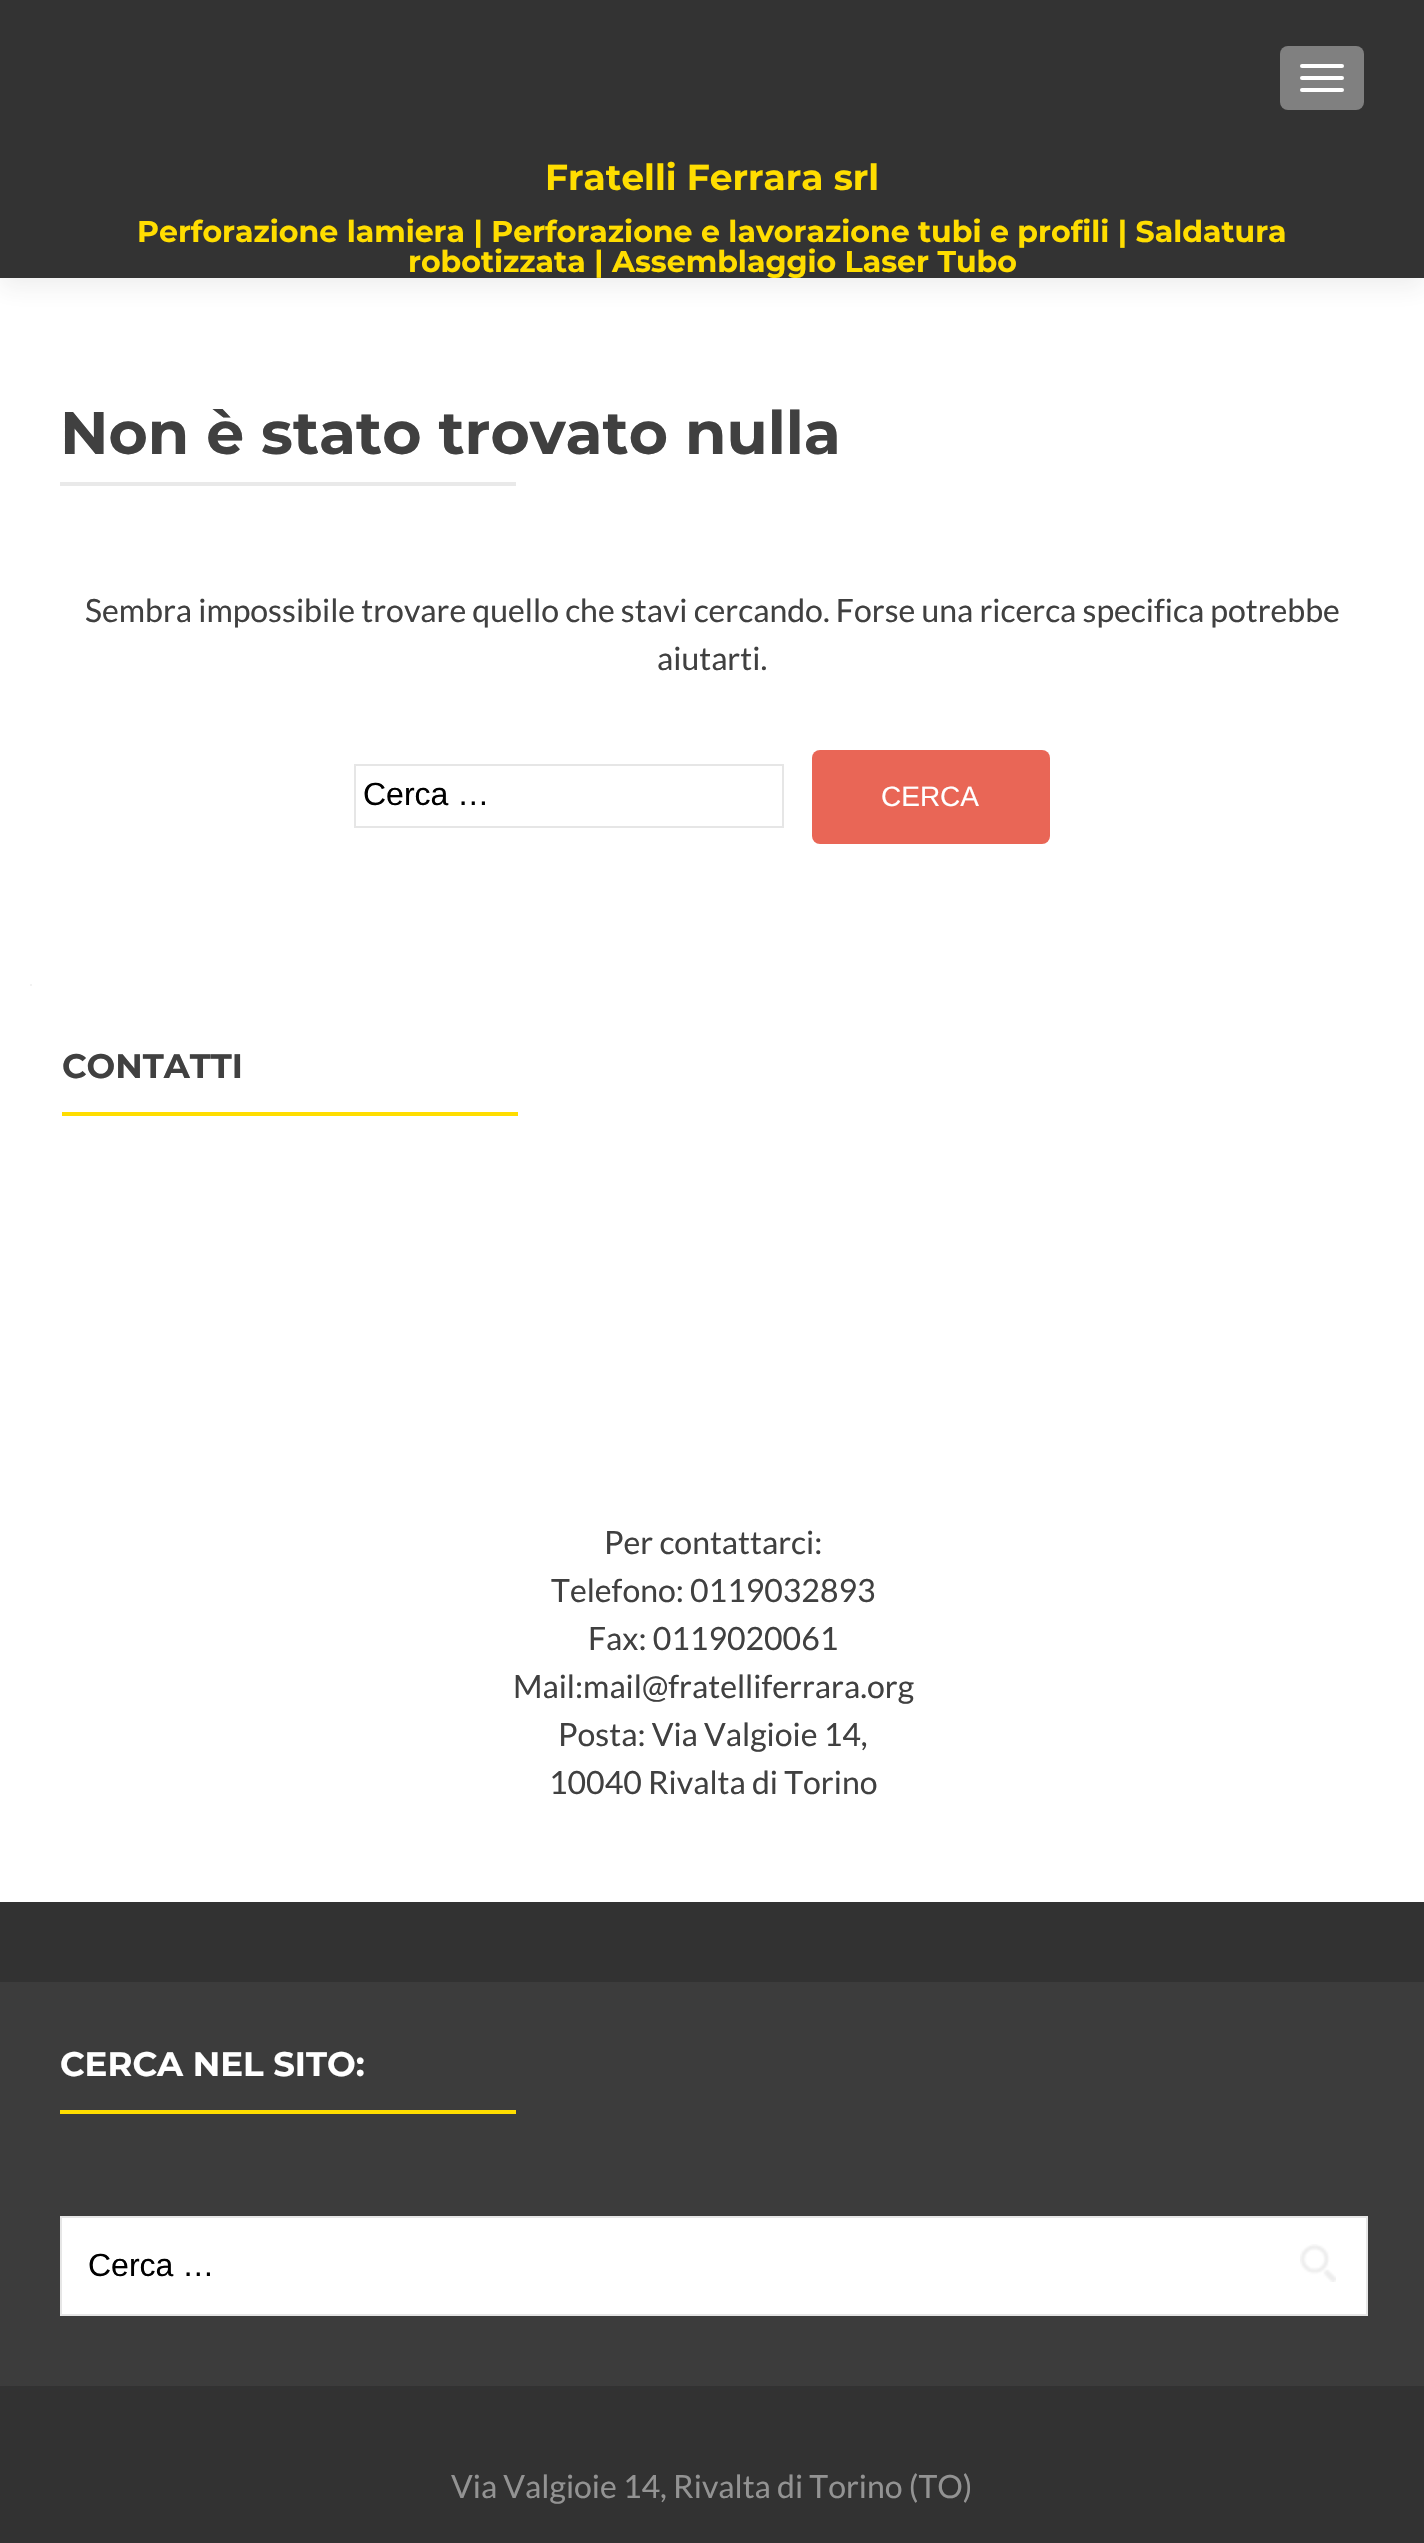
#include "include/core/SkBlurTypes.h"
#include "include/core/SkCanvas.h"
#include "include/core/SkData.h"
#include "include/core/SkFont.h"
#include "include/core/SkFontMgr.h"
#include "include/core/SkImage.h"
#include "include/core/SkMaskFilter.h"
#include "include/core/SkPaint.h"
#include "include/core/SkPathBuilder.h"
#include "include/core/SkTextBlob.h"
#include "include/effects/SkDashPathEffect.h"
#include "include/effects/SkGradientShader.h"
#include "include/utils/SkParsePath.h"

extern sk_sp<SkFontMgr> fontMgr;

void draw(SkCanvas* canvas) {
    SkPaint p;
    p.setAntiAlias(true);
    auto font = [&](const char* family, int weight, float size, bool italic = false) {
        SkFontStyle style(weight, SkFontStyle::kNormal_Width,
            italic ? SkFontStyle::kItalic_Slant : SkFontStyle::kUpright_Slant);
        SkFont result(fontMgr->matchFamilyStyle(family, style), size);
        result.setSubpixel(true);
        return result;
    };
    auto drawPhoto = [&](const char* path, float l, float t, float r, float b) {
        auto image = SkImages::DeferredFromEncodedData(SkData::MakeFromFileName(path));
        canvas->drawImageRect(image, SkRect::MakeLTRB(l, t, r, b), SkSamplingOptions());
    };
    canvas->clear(0xFFFFFFFF);
    p.setColor(0x14323232);
    p.setMaskFilter(SkMaskFilter::MakeBlur(kNormal_SkBlurStyle, 11));
    canvas->drawRect(SkRect::MakeLTRB(0, 10, 1424, 288), p);
    p.setMaskFilter(nullptr);
    p.setColor(0xFF333333);
    canvas->drawRect(SkRect::MakeLTRB(0, 0, 1424, 278), p);
    p.setColor(0xFF808080);
    canvas->drawRoundRect(SkRect::MakeLTRB(1280, 46, 1364, 110), 8, 8, p);
    p.setColor(0xFFFFFFFF);
    canvas->drawRoundRect(SkRect::MakeLTRB(1300, 64, 1344, 68), 2, 2, p);
    canvas->drawRoundRect(SkRect::MakeLTRB(1300, 76, 1344, 80), 2, 2, p);
    canvas->drawRoundRect(SkRect::MakeLTRB(1300, 88, 1344, 92), 2, 2, p);
    auto font1 = font("Montserrat", 700, 36);
    p.setColor(0xFFFFDD00);
    canvas->drawString("Fratelli Ferrara srl", 545, 190, font1, p);
    auto font2 = font("Montserrat", 700, 30);
    canvas->drawString("Perforazione lamiera | Perforazione e lavorazione tubi e profili | Saldatura", 137, 242, font2, p);
    canvas->drawString("robotizzata | Assemblaggio Laser Tubo", 408, 272, font2, p);
    auto font3 = font("Montserrat", 700, 60);
    p.setColor(0xFF404040);
    canvas->drawString("Non è stato trovato nulla", 60, 454, font3, p);
    p.setColor(0xFFE9E9E9);
    canvas->drawRect(SkRect::MakeLTRB(60, 482, 516, 486), p);
    auto font4 = font("Lato", 400, 32);
    p.setColor(0xFF404040);
    canvas->drawString("Sembra impossibile trovare quello che stavi cercando. Forse una ricerca specifica potrebbe", 85, 622, font4, p);
    canvas->drawString("aiutarti.", 657, 670, font4, p);
    p.setStyle(SkPaint::kStroke_Style);
    p.setStrokeWidth(2);
    p.setColor(0xFFE6E6E6);
    canvas->drawRect(SkRect::MakeLTRB(355, 765, 783, 827), p);
    auto font5 = font("Liberation Sans", 400, 32);
    p.setStyle(SkPaint::kFill_Style);
    p.setColor(0xFF000000);
    canvas->drawString("Cerca …", 363, 805, font5, p);
    p.setColor(0xFFE96656);
    canvas->drawRoundRect(SkRect::MakeLTRB(812, 750, 1050, 844), 8, 8, p);
    auto font6 = font("Liberation Sans", 400, 28);
    p.setColor(0xFFFFFFFF);
    canvas->drawString("CERCA", 881, 806, font6, p);
    p.setColor(0xFFF2F2F2);
    canvas->drawRect(SkRect::MakeLTRB(30, 984, 32, 986), p);
    auto font7 = font("Montserrat", 700, 34);
    p.setColor(0xFF404040);
    canvas->drawString("CONTATTI", 62, 1078, font7, p);
    p.setColor(0xFFFFDD00);
    canvas->drawRect(SkRect::MakeLTRB(62, 1112, 518, 1116), p);
    p.setColor(0xFF404040);
    {
        const struct { const char* s; float x, y; } items[] = {
            {"Per contattarci:", 604, 1554},
            {"Telefono: 0119032893", 551, 1602},
            {"Fax: 0119020061", 588, 1650},
            {"Mail:mail@fratelliferrara.org", 513, 1698},
            {"Posta: Via Valgioie 14,", 558, 1746},
            {"10040 Rivalta di Torino", 549, 1794},
        };
        for (auto [s, x, y] : items) {
            canvas->drawString(s, x, y, font4, p);
        }
    }
    p.setColor(0xFF323232);
    canvas->drawRect(SkRect::MakeLTRB(0, 1902, 1424, 2543), p);
    p.setColor(0xFF3C3C3C);
    canvas->drawRect(SkRect::MakeLTRB(0, 1982, 1424, 2386), p);
    p.setColor(0xFFFFFFFF);
    canvas->drawString("CERCA NEL SITO:", 60, 2076, font7, p);
    p.setColor(0xFFFFDD00);
    canvas->drawRect(SkRect::MakeLTRB(60, 2110, 516, 2114), p);
    p.setColor(0xFFFFFFFF);
    canvas->drawRect(SkRect::MakeLTRB(61, 2217, 1367, 2315), p);
    p.setStyle(SkPaint::kStroke_Style);
    p.setColor(0xFFE6E6E6);
    canvas->drawRect(SkRect::MakeLTRB(61, 2217, 1367, 2315), p);
    p.setStyle(SkPaint::kFill_Style);
    p.setColor(0xFF000000);
    canvas->drawString("Cerca …", 88, 2276, font5, p);
    drawPhoto("media/1.png", 1300, 2244, 1336, 2282);
    p.setColor(0xFF939393);
    canvas->drawString("Via Valgioie 14, Rivalta di Torino (TO)", 451, 2498, font4, p);
}
